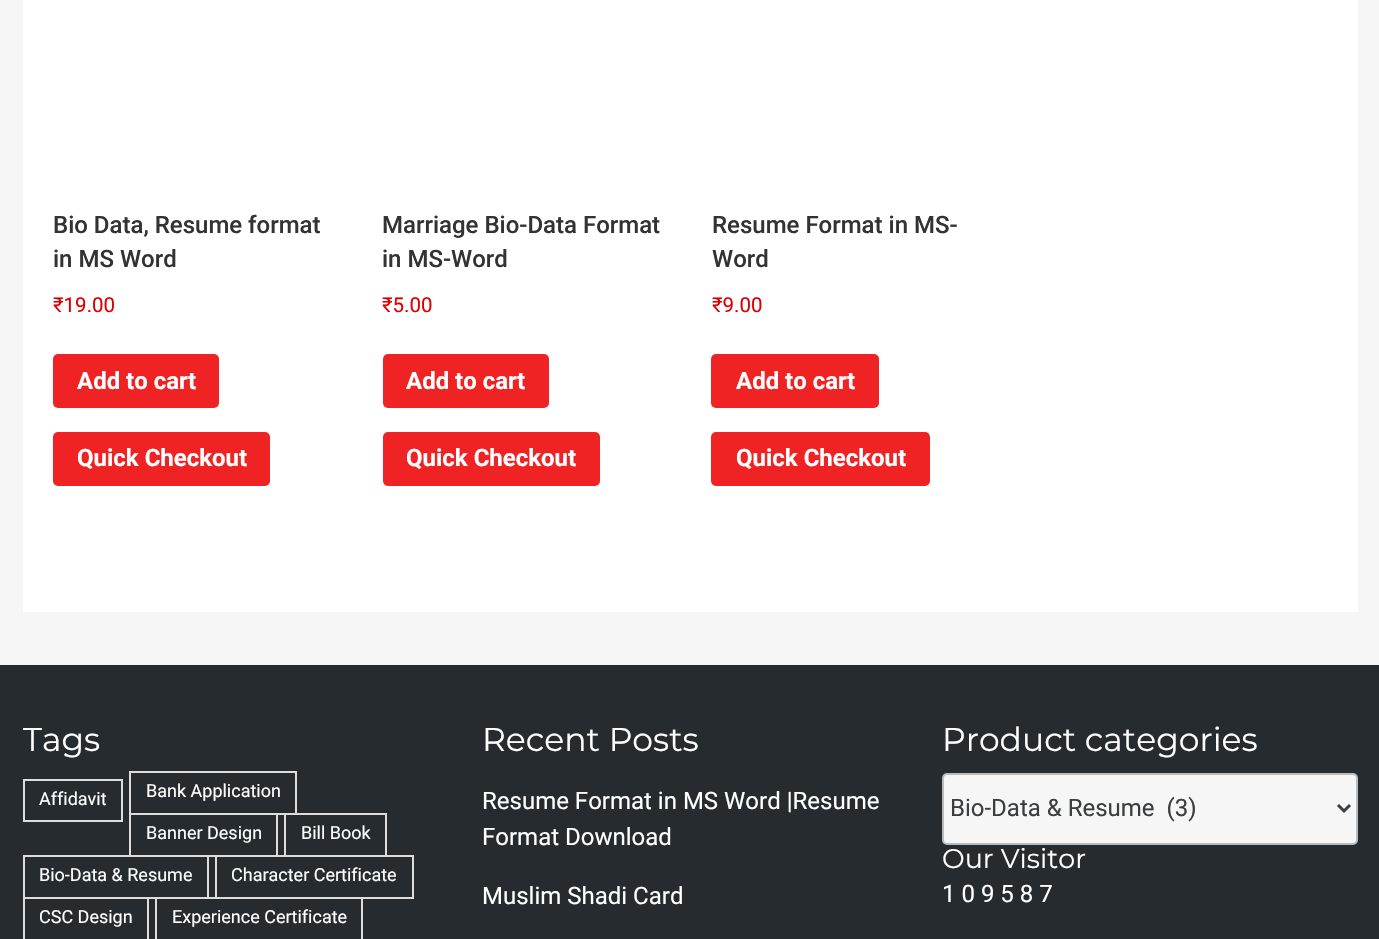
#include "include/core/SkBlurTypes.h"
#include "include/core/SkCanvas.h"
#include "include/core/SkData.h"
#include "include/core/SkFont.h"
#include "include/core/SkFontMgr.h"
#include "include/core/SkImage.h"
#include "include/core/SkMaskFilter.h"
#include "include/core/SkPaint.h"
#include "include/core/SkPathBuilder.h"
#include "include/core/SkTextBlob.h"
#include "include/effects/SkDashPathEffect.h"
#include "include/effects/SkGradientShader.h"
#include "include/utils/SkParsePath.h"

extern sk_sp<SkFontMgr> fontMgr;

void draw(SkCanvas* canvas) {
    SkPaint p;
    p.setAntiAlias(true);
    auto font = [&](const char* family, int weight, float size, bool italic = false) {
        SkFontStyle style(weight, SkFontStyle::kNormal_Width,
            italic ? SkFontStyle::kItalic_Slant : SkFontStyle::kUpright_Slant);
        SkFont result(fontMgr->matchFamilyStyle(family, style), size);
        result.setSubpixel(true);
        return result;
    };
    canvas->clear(0xFFF6F6F6);
    p.setColor(0xFFFFFFFF);
    canvas->drawRect(SkRect::MakeLTRB(23, 0, 1358, 612), p);
    auto font1 = font("Roboto", 500, 24);
    p.setColor(0xFF333333);
    canvas->drawString("Bio Data, Resume format", 53, 233, font1, p);
    canvas->drawString("in MS Word", 53, 267, font1, p);
    auto font2 = font("Roboto", 400, 20.5f);
    p.setColor(0xFFDE0000);
    canvas->drawString("₹19.00", 53, 312, font2, p);
    p.setColor(0xFFEF2323);
    canvas->drawRoundRect(SkRect::MakeLTRB(53, 354, 219, 408), 5, 5, p);
    auto font3 = font("Roboto", 700, 24);
    p.setColor(0xFFFFFFFF);
    canvas->drawString("Add to cart", 77, 389, font3, p);
    p.setColor(0xFFEF2323);
    canvas->drawRoundRect(SkRect::MakeLTRB(53, 432, 270, 486), 5, 5, p);
    p.setColor(0xFFFFFFFF);
    canvas->drawString("Quick Checkout", 77, 466, font3, p);
    p.setColor(0xFF333333);
    canvas->drawString("Marriage Bio-Data Format", 382, 233, font1, p);
    canvas->drawString("in MS-Word", 382, 267, font1, p);
    p.setColor(0xFFDE0000);
    canvas->drawString("₹5.00", 382, 312, font2, p);
    p.setColor(0xFFEF2323);
    canvas->drawRoundRect(SkRect::MakeLTRB(383, 354, 549, 408), 5, 5, p);
    p.setColor(0xFFFFFFFF);
    canvas->drawString("Add to cart", 406, 389, font3, p);
    p.setColor(0xFFEF2323);
    canvas->drawRoundRect(SkRect::MakeLTRB(383, 432, 600, 486), 5, 5, p);
    p.setColor(0xFFFFFFFF);
    canvas->drawString("Quick Checkout", 406, 466, font3, p);
    p.setColor(0xFF333333);
    canvas->drawString("Resume Format in MS-", 712, 233, font1, p);
    canvas->drawString("Word", 712, 267, font1, p);
    p.setColor(0xFFDE0000);
    canvas->drawString("₹9.00", 712, 312, font2, p);
    p.setColor(0xFFEF2323);
    canvas->drawRoundRect(SkRect::MakeLTRB(711, 354, 879, 408), 5, 5, p);
    p.setColor(0xFFFFFFFF);
    canvas->drawString("Add to cart", 736, 389, font3, p);
    p.setColor(0xFFEF2323);
    canvas->drawRoundRect(SkRect::MakeLTRB(711, 432, 930, 486), 5, 5, p);
    p.setColor(0xFFFFFFFF);
    canvas->drawString("Quick Checkout", 736, 466, font3, p);
    p.setColor(0xFF262B30);
    canvas->drawRect(SkRect::MakeLTRB(0, 665, 1379, 939), p);
    auto font4 = font("Montserrat", 400, 33);
    p.setColor(0xFFFFFFFF);
    canvas->drawString("Tags", 23, 751, font4, p);
    p.setStyle(SkPaint::kStroke_Style);
    p.setStrokeWidth(2);
    p.setColor(0xFFDDDDDD);
    canvas->drawRect(SkRect::MakeLTRB(24, 780, 122, 821), p);
    auto font5 = font("Roboto", 400, 18);
    p.setStyle(SkPaint::kFill_Style);
    p.setColor(0xFFFFFFFF);
    canvas->drawString("Affidavit", 39, 805, font5, p);
    p.setStyle(SkPaint::kStroke_Style);
    p.setColor(0xFFDDDDDD);
    canvas->drawRect(SkRect::MakeLTRB(130, 772, 296, 814), p);
    p.setStyle(SkPaint::kFill_Style);
    p.setColor(0xFFFFFFFF);
    canvas->drawString("Bank Application", 146, 797, font5, p);
    p.setStyle(SkPaint::kStroke_Style);
    p.setColor(0xFFDDDDDD);
    canvas->drawRect(SkRect::MakeLTRB(130, 814, 277, 856), p);
    p.setStyle(SkPaint::kFill_Style);
    p.setColor(0xFFFFFFFF);
    canvas->drawString("Banner Design", 146, 839, font5, p);
    p.setStyle(SkPaint::kStroke_Style);
    p.setColor(0xFFDDDDDD);
    canvas->drawRect(SkRect::MakeLTRB(285, 814, 386, 856), p);
    p.setStyle(SkPaint::kFill_Style);
    p.setColor(0xFFFFFFFF);
    canvas->drawString("Bill Book", 301, 839, font5, p);
    p.setStyle(SkPaint::kStroke_Style);
    p.setColor(0xFFDDDDDD);
    canvas->drawRect(SkRect::MakeLTRB(24, 856, 208, 898), p);
    p.setStyle(SkPaint::kFill_Style);
    p.setColor(0xFFFFFFFF);
    canvas->drawString("Bio-Data & Resume", 39, 881, font5, p);
    p.setStyle(SkPaint::kStroke_Style);
    p.setColor(0xFFDDDDDD);
    canvas->drawRect(SkRect::MakeLTRB(216, 856, 413, 898), p);
    p.setStyle(SkPaint::kFill_Style);
    p.setColor(0xFFFFFFFF);
    canvas->drawString("Character Certificate", 231, 881, font5, p);
    p.setStyle(SkPaint::kStroke_Style);
    p.setColor(0xFFDDDDDD);
    canvas->drawRect(SkRect::MakeLTRB(24, 898, 148, 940), p);
    p.setStyle(SkPaint::kFill_Style);
    p.setColor(0xFFFFFFFF);
    canvas->drawString("CSC Design", 39, 923, font5, p);
    p.setStyle(SkPaint::kStroke_Style);
    p.setColor(0xFFDDDDDD);
    canvas->drawRect(SkRect::MakeLTRB(156, 898, 362, 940), p);
    p.setStyle(SkPaint::kFill_Style);
    p.setColor(0xFFFFFFFF);
    canvas->drawString("Experience Certificate", 172, 923, font5, p);
    canvas->drawString("Recent Posts", 482, 751, font4, p);
    auto font6 = font("Roboto", 400, 24);
    {
        const struct { const char* s; float x, y; } items[] = {
            {"Resume Format in MS Word |Resume", 482, 809},
            {"Format Download", 482, 845},
            {"Muslim Shadi Card", 482, 904},
        };
        for (auto [s, x, y] : items) {
            canvas->drawString(s, x, y, font6, p);
        }
    }
    canvas->drawString("Product categories", 942, 751, font4, p);
    p.setColor(0xFFF6F6F6);
    canvas->drawRoundRect(SkRect::MakeLTRB(943, 774, 1357, 844), 4, 4, p);
    p.setStyle(SkPaint::kStroke_Style);
    p.setColor(0xFFBBBBBB);
    canvas->drawRoundRect(SkRect::MakeLTRB(943, 774, 1357, 844), 4, 4, p);
    p.setStrokeWidth(3);
    p.setColor(0xFF3B3D3F);
    canvas->drawPath(SkPathBuilder().moveTo(1338, 805).lineTo(1344, 811).lineTo(1350, 805).detach(), p);
    p.setStyle(SkPaint::kFill_Style);
    canvas->drawString("Bio-Data & Resume  (3)", 950, 816, font6, p);
    auto font7 = font("Montserrat", 400, 27);
    p.setColor(0xFFFFFFFF);
    canvas->drawString("Our Visitor", 942, 868, font7, p);
    canvas->drawString("1 0 9 5 8 7", 942, 902, font6, p);
}
